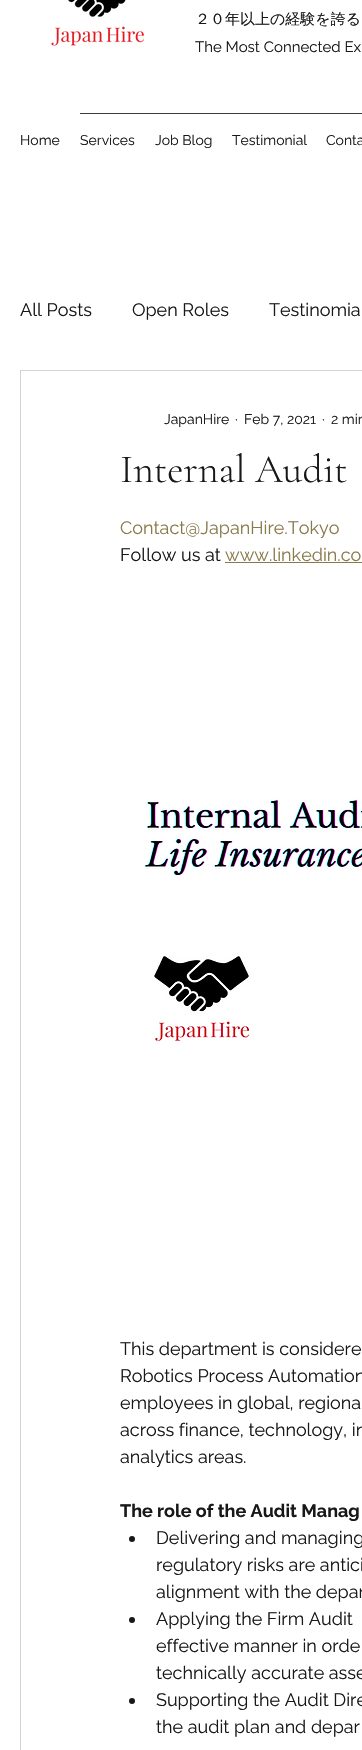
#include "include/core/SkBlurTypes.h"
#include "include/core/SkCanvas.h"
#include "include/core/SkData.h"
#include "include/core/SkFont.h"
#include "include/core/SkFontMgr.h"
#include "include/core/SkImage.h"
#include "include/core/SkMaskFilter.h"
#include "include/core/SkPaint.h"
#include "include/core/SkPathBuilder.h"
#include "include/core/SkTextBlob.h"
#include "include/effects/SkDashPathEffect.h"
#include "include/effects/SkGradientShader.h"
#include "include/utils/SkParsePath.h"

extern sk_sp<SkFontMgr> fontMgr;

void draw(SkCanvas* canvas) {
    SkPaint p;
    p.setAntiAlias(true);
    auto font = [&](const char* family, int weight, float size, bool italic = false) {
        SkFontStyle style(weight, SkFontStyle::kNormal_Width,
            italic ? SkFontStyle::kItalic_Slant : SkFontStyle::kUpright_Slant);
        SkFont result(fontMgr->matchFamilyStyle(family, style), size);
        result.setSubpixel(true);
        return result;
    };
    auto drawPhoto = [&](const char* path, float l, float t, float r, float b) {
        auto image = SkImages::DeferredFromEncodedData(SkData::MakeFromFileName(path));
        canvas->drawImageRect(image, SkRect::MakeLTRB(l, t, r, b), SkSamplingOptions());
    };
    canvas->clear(0xFFFFFFFF);
    drawPhoto("media/1.png", 51, 0, 145, 46);
    auto font1 = font("WenQuanYi Zen Hei", 500, 15);
    p.setColor(0xFF181818);
    canvas->drawString("２０年以上の経験を誇る", 195, 24, font1, p);
    auto font2 = font("Raleway", 400, 15);
    canvas->drawString("The Most Connected Ex", 195, 52, font2, p);
    p.setColor(0xFF3B3B3B);
    canvas->drawRect(SkRect::MakeLTRB(80, 113, 362, 114), p);
    auto font3 = font("Raleway", 400, 14);
    p.setColor(0xFF181818);
    {
        const struct { const char* s; float x, y; } items[] = {
            {"Home", 20, 145},
            {"Services", 80, 145},
            {"Job Blog", 155, 145},
            {"Testimonial", 232, 145},
            {"Conta", 326, 145},
        };
        for (auto [s, x, y] : items) {
            canvas->drawString(s, x, y, font3, p);
        }
    }
    auto font4 = font("Raleway", 400, 18);
    {
        const struct { const char* s; float x, y; } items[] = {
            {"All Posts", 20, 316},
            {"Open Roles", 132, 316},
            {"Testinomia", 269, 316},
        };
        for (auto [s, x, y] : items) {
            canvas->drawString(s, x, y, font4, p);
        }
    }
    p.setStyle(SkPaint::kStroke_Style);
    p.setStrokeWidth(1);
    p.setColor(0xFFD4D4D4);
    canvas->drawRect(SkRect::MakeLTRB(20.5f, 370.5f, 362.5f, 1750.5f), p);
    p.setStyle(SkPaint::kFill_Style);
    p.setColor(0xFF181818);
    {
        const struct { const char* s; float x, y; } items[] = {
            {"JapanHire", 164, 424},
            {"·", 235, 424},
            {"Feb 7, 2021", 244, 424},
            {"·", 322, 424},
            {"2 min", 331, 424},
        };
        for (auto [s, x, y] : items) {
            canvas->drawString(s, x, y, font3, p);
        }
    }
    auto font5 = font("Cormorant Garamond", 300, 40);
    canvas->drawString("Internal Audit", 120, 482, font5, p);
    p.setColor(0xFF897A4B);
    canvas->drawString("Contact@JapanHire.Tokyo", 120, 534, font4, p);
    p.setColor(0xFF181818);
    canvas->drawString("Follow us at", 120, 561, font4, p);
    p.setColor(0xFF897A4B);
    canvas->drawString("www.linkedin.co", 225, 561, font4, p);
    canvas->drawRect(SkRect::MakeLTRB(225, 562, 362, 563), p);
    drawPhoto("media/2.png", 144, 798, 362, 1042);
    p.setColor(0xFF181818);
    {
        const struct { const char* s; float x, y; } items[] = {
            {"This department is considere", 120, 1355},
            {"Robotics Process Automation", 120, 1382},
            {"employees in global, regiona", 120, 1409},
            {"across finance, technology, in", 120, 1436},
            {"analytics areas.", 120, 1463},
        };
        for (auto [s, x, y] : items) {
            canvas->drawString(s, x, y, font4, p);
        }
    }
    auto font6 = font("Raleway", 700, 18);
    canvas->drawString("The role of the Audit Manag", 120, 1517, font6, p);
    canvas->drawCircle(132, 1539, 3, p);
    {
        const struct { const char* s; float x, y; } items[] = {
            {"Delivering and managing", 156, 1544},
            {"regulatory risks are antici", 156, 1571},
            {"alignment with the depar", 156, 1598},
        };
        for (auto [s, x, y] : items) {
            canvas->drawString(s, x, y, font4, p);
        }
    }
    canvas->drawCircle(132, 1620, 3, p);
    {
        const struct { const char* s; float x, y; } items[] = {
            {"Applying the Firm Audit", 156, 1625},
            {"effective manner in orde", 156, 1652},
            {"technically accurate asse", 156, 1679},
        };
        for (auto [s, x, y] : items) {
            canvas->drawString(s, x, y, font4, p);
        }
    }
    canvas->drawCircle(132, 1701, 3, p);
    canvas->drawString("Supporting the Audit Dire", 156, 1706, font4, p);
    canvas->drawString("the audit plan and depar", 156, 1733, font4, p);
}
